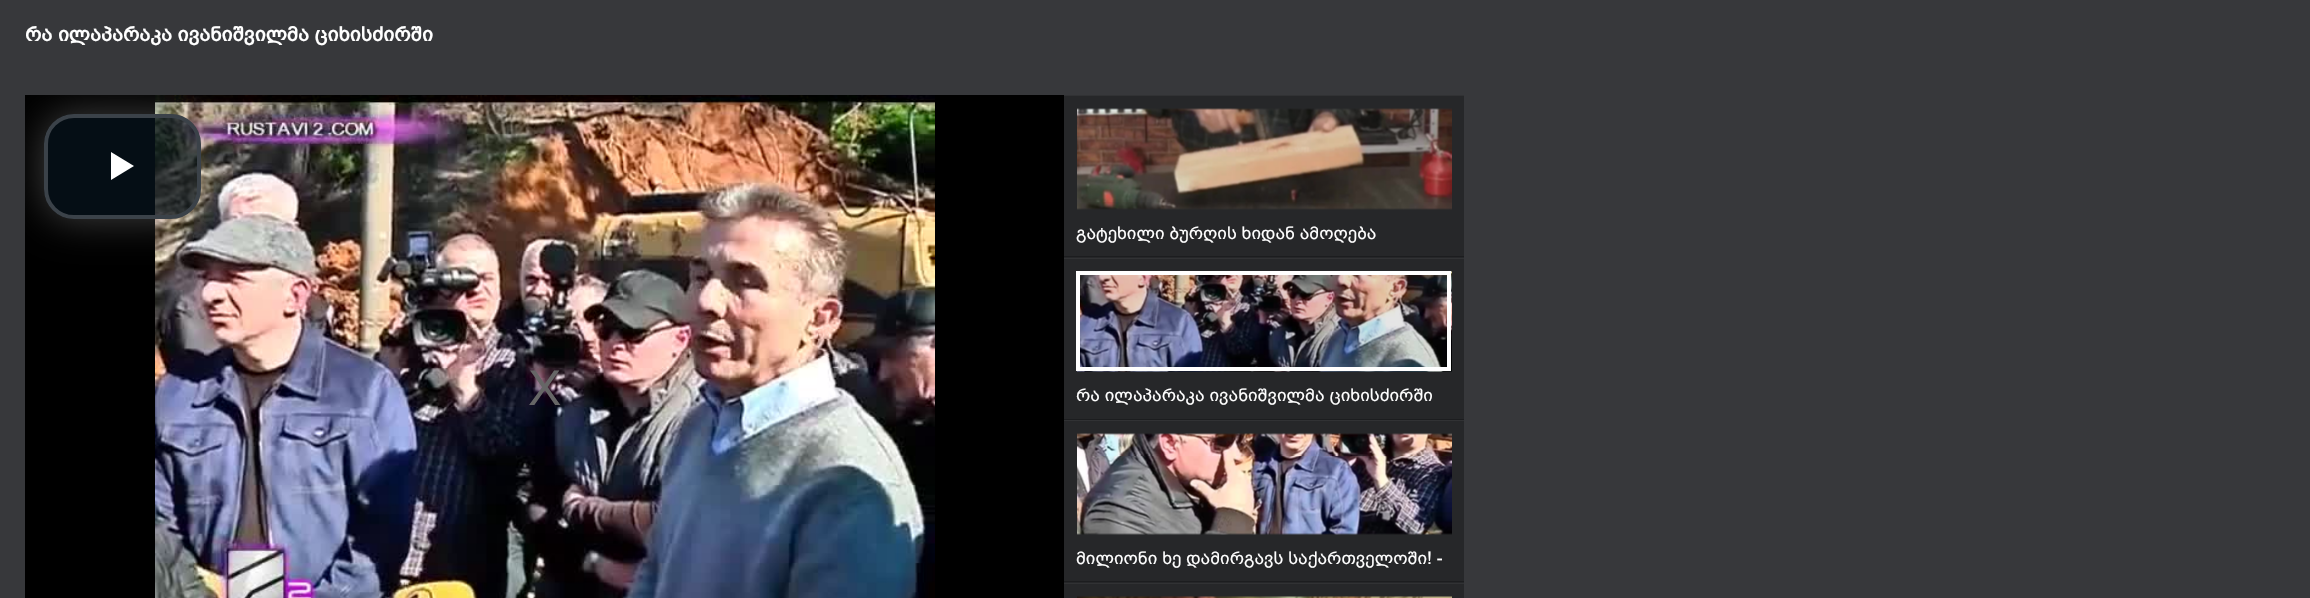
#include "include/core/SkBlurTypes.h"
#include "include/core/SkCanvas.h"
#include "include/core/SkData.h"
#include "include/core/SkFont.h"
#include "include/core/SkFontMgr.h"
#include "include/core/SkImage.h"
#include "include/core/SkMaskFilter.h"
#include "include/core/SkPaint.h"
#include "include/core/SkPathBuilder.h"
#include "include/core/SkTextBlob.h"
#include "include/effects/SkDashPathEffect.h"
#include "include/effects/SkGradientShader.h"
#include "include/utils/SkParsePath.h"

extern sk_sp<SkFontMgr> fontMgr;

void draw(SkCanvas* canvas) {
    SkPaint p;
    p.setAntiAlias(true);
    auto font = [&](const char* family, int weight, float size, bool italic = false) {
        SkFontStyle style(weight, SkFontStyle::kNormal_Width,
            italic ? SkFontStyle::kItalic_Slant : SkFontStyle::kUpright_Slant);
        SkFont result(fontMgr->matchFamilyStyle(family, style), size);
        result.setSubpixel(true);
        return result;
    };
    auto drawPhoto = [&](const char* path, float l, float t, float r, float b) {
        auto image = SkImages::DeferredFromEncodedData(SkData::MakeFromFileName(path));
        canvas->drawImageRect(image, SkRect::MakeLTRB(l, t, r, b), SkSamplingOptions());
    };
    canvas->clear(0xFF37383B);
    auto font1 = font("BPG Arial", 700, 20);
    p.setColor(0xFFFFFFFF);
    canvas->drawString("რა ილაპარაკა ივანიშვილმა ციხისძირში", 25, 41, font1, p);
    p.setColor(0xFF000000);
    canvas->drawRect(SkRect::MakeLTRB(25, 95, 1064, 598), p);
    drawPhoto("media/1.png", 155, 95, 935, 598);
    canvas->save();
    canvas->clipRect(SkRect::MakeLTRB(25, 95, 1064, 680));
    canvas->clipPath(SkPathBuilder(SkPathFillType::kEvenOdd).moveTo(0, 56).lineTo(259, 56).lineTo(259, 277).lineTo(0, 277).close().moveTo(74, 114).lineTo(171, 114).cubicTo(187.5f, 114, 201, 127.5f, 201, 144).lineTo(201, 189).cubicTo(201, 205.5f, 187.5f, 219, 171, 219).lineTo(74, 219).cubicTo(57.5f, 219, 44, 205.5f, 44, 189).lineTo(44, 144).cubicTo(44, 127.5f, 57.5f, 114, 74, 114).close().detach(), true);
    p.setColor(0x40FFFFFF);
    p.setMaskFilter(SkMaskFilter::MakeBlur(kNormal_SkBlurStyle, 19));
    canvas->drawRoundRect(SkRect::MakeLTRB(44, 114, 201, 219), 30, 30, p);
    p.setMaskFilter(nullptr);
    canvas->restore();
    p.setColor(0xB307141E);
    canvas->drawRoundRect(SkRect::MakeLTRB(46, 116, 199, 217), 28, 28, p);
    p.setStyle(SkPaint::kStroke_Style);
    p.setStrokeWidth(4);
    p.setColor(0xFF3B4249);
    canvas->drawRoundRect(SkRect::MakeLTRB(46, 116, 199, 217), 28, 28, p);
    p.setStyle(SkPaint::kFill_Style);
    p.setColor(0xFFFFFFFF);
    canvas->drawPath(SkPathBuilder().moveTo(111, 152).lineTo(134, 166).lineTo(111, 180).close().detach(), p);
    auto font2 = font("Liberation Sans", 400, 50);
    p.setColor(0xFF666666);
    canvas->drawString("X", 528, 405, font2, p);
    {
        const struct { float l, t, r, b; SkColor color; } items[] = {
            {1064, 96, 1464, 598, 0xFF262729},
            {1064, 95, 1464, 96, 0xFF313234},
            {1064, 256, 1464, 257, 0xFF1C1D1F},
        };
        for (auto [l, t, r, b, color] : items) {
            p.setColor(color);
            canvas->drawRect(SkRect::MakeLTRB(l, t, r, b), p);
        }
    }
    drawPhoto("media/2.png", 1077, 108, 1452, 210);
    auto font3 = font("BPG Arial", 400, 17.5f);
    p.setColor(0xFFFFFFFF);
    canvas->drawString("გატეხილი ბურღის ხიდან ამოღება", 1076, 239, font3, p);
    p.setColor(0xFF313234);
    canvas->drawRect(SkRect::MakeLTRB(1064, 258, 1464, 259), p);
    p.setColor(0xFF1C1D1F);
    canvas->drawRect(SkRect::MakeLTRB(1064, 419, 1464, 420), p);
    drawPhoto("media/3.png", 1077, 271, 1452, 372);
    p.setStyle(SkPaint::kStroke_Style);
    p.setColor(0xFFFFFFFF);
    canvas->drawRect(SkRect::MakeLTRB(1078, 273, 1449, 369), p);
    p.setStyle(SkPaint::kFill_Style);
    canvas->drawString("რა ილაპარაკა ივანიშვილმა ციხისძირში", 1076, 401, font3, p);
    p.setColor(0xFF313234);
    canvas->drawRect(SkRect::MakeLTRB(1064, 420, 1464, 421), p);
    p.setColor(0xFF1C1D1F);
    canvas->drawRect(SkRect::MakeLTRB(1064, 581, 1464, 582), p);
    drawPhoto("media/4.png", 1077, 433, 1452, 535);
    p.setColor(0xFFFFFFFF);
    canvas->drawString("მილიონი ხე დამირგავს საქართველოში! -", 1076, 564, font3, p);
    p.setColor(0xFF313234);
    canvas->drawRect(SkRect::MakeLTRB(1064, 583, 1464, 584), p);
    drawPhoto("media/5.png", 1077, 596, 1452, 598);
}
